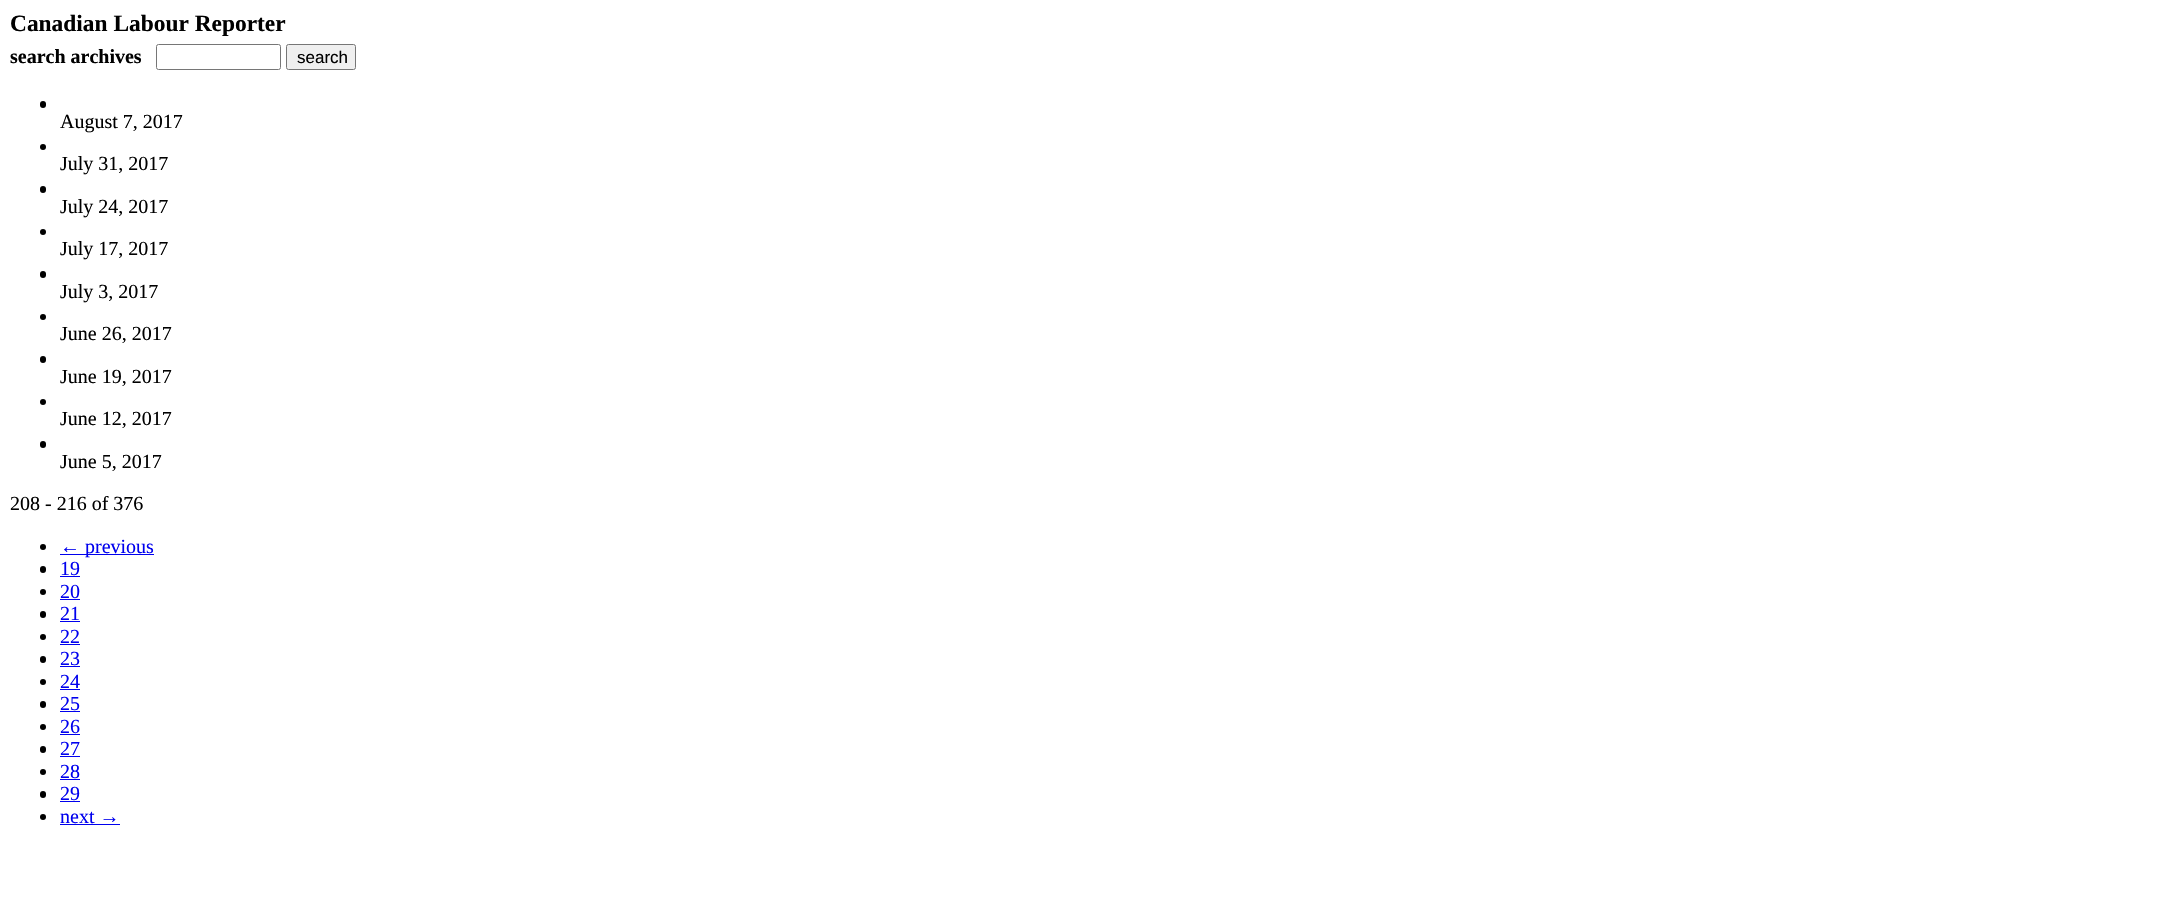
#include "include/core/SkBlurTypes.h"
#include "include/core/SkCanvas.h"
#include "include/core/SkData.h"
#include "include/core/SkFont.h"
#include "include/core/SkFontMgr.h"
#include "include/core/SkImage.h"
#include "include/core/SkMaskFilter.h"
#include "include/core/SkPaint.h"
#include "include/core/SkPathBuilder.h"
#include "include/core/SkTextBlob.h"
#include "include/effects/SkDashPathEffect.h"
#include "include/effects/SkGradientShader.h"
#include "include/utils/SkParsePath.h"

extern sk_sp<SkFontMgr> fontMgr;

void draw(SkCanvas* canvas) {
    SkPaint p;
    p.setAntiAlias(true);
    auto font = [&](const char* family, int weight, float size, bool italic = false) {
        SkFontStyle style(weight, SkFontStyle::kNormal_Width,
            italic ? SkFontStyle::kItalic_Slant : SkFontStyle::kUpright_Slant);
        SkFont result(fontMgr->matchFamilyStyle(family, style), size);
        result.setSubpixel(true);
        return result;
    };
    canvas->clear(0xFFFFFFFF);
    auto font1 = font("Liberation Serif", 700, 23.4f);
    p.setColor(0xFF000000);
    canvas->drawString("Canadian Labour Reporter", 10, 31, font1, p);
    auto font2 = font("Liberation Serif", 700, 20);
    canvas->drawString("search archives", 10, 63, font2, p);
    p.setStyle(SkPaint::kStroke_Style);
    p.setStrokeWidth(1);
    p.setColor(0xFF767676);
    canvas->drawRoundRect(SkRect::MakeLTRB(156.5f, 44.5f, 280.5f, 69.5f), 2, 2, p);
    p.setStyle(SkPaint::kFill_Style);
    p.setColor(0xFFEFEFEF);
    canvas->drawRoundRect(SkRect::MakeLTRB(286.5f, 44.5f, 355.5f, 69.5f), 2, 2, p);
    p.setStyle(SkPaint::kStroke_Style);
    p.setColor(0xFF767676);
    canvas->drawRoundRect(SkRect::MakeLTRB(286.5f, 44.5f, 355.5f, 69.5f), 2, 2, p);
    auto font3 = font("Liberation Sans", 400, 17);
    p.setStyle(SkPaint::kFill_Style);
    p.setColor(0xFF000000);
    canvas->drawString("search", 297, 63, font3, p);
    canvas->drawRoundRect(SkRect::MakeLTRB(40, 101, 46, 108), 3, 3, p);
    auto font4 = font("Liberation Serif", 400, 20);
    canvas->drawString("August 7, 2017", 60, 128, font4, p);
    canvas->drawCircle(43, 147, 3, p);
    canvas->drawString("July 31, 2017", 60, 170, font4, p);
    canvas->drawRoundRect(SkRect::MakeLTRB(40, 186, 46, 193), 3, 3, p);
    canvas->drawString("July 24, 2017", 60, 213, font4, p);
    canvas->drawCircle(43, 232, 3, p);
    canvas->drawString("July 17, 2017", 60, 255, font4, p);
    canvas->drawRoundRect(SkRect::MakeLTRB(40, 271, 46, 278), 3, 3, p);
    canvas->drawString("July 3, 2017", 60, 298, font4, p);
    canvas->drawCircle(43, 317, 3, p);
    canvas->drawString("June 26, 2017", 60, 340, font4, p);
    canvas->drawRoundRect(SkRect::MakeLTRB(40, 356, 46, 363), 3, 3, p);
    canvas->drawString("June 19, 2017", 60, 383, font4, p);
    canvas->drawCircle(43, 402, 3, p);
    canvas->drawString("June 12, 2017", 60, 425, font4, p);
    canvas->drawRoundRect(SkRect::MakeLTRB(40, 441, 46, 448), 3, 3, p);
    canvas->drawString("June 5, 2017", 60, 468, font4, p);
    canvas->drawString("208 - 216 of 376", 10, 510, font4, p);
    canvas->drawCircle(43, 547, 3, p);
    p.setColor(0xFF0000EE);
    canvas->drawRect(SkRect::MakeLTRB(60, 554, 154, 555), p);
    canvas->drawString("← previous", 60, 553, font4, p);
    p.setColor(0xFF000000);
    canvas->drawRoundRect(SkRect::MakeLTRB(40, 566, 46, 573), 3, 3, p);
    p.setColor(0xFF0000EE);
    canvas->drawString("19", 60, 575, font4, p);
    canvas->drawRect(SkRect::MakeLTRB(60, 576, 80, 577), p);
    p.setColor(0xFF000000);
    canvas->drawCircle(43, 592, 3, p);
    p.setColor(0xFF0000EE);
    canvas->drawString("20", 60, 598, font4, p);
    canvas->drawRect(SkRect::MakeLTRB(60, 599, 80, 600), p);
    p.setColor(0xFF000000);
    canvas->drawRoundRect(SkRect::MakeLTRB(40, 611, 46, 618), 3, 3, p);
    p.setColor(0xFF0000EE);
    canvas->drawString("21", 60, 620, font4, p);
    canvas->drawRect(SkRect::MakeLTRB(60, 621, 80, 622), p);
    p.setColor(0xFF000000);
    canvas->drawCircle(43, 637, 3, p);
    p.setColor(0xFF0000EE);
    canvas->drawString("22", 60, 643, font4, p);
    canvas->drawRect(SkRect::MakeLTRB(60, 644, 80, 645), p);
    p.setColor(0xFF000000);
    canvas->drawRoundRect(SkRect::MakeLTRB(40, 656, 46, 663), 3, 3, p);
    p.setColor(0xFF0000EE);
    canvas->drawString("23", 60, 665, font4, p);
    canvas->drawRect(SkRect::MakeLTRB(60, 666, 80, 667), p);
    p.setColor(0xFF000000);
    canvas->drawCircle(43, 682, 3, p);
    p.setColor(0xFF0000EE);
    canvas->drawString("24", 60, 688, font4, p);
    canvas->drawRect(SkRect::MakeLTRB(60, 689, 80, 690), p);
    p.setColor(0xFF000000);
    canvas->drawRoundRect(SkRect::MakeLTRB(40, 701, 46, 708), 3, 3, p);
    p.setColor(0xFF0000EE);
    canvas->drawString("25", 60, 710, font4, p);
    canvas->drawRect(SkRect::MakeLTRB(60, 711, 80, 712), p);
    p.setColor(0xFF000000);
    canvas->drawCircle(43, 727, 3, p);
    p.setColor(0xFF0000EE);
    canvas->drawString("26", 60, 733, font4, p);
    canvas->drawRect(SkRect::MakeLTRB(60, 734, 80, 735), p);
    p.setColor(0xFF000000);
    canvas->drawRoundRect(SkRect::MakeLTRB(40, 746, 46, 753), 3, 3, p);
    p.setColor(0xFF0000EE);
    canvas->drawString("27", 60, 755, font4, p);
    canvas->drawRect(SkRect::MakeLTRB(60, 756, 80, 757), p);
    p.setColor(0xFF000000);
    canvas->drawCircle(43, 772, 3, p);
    p.setColor(0xFF0000EE);
    canvas->drawString("28", 60, 778, font4, p);
    canvas->drawRect(SkRect::MakeLTRB(60, 779, 80, 780), p);
    p.setColor(0xFF000000);
    canvas->drawRoundRect(SkRect::MakeLTRB(40, 791, 46, 798), 3, 3, p);
    p.setColor(0xFF0000EE);
    canvas->drawString("29", 60, 800, font4, p);
    canvas->drawRect(SkRect::MakeLTRB(60, 801, 80, 802), p);
    p.setColor(0xFF000000);
    canvas->drawCircle(43, 817, 3, p);
    p.setColor(0xFF0000EE);
    canvas->drawString("next →", 60, 823, font4, p);
    canvas->drawRect(SkRect::MakeLTRB(60, 824, 120, 825), p);
}
